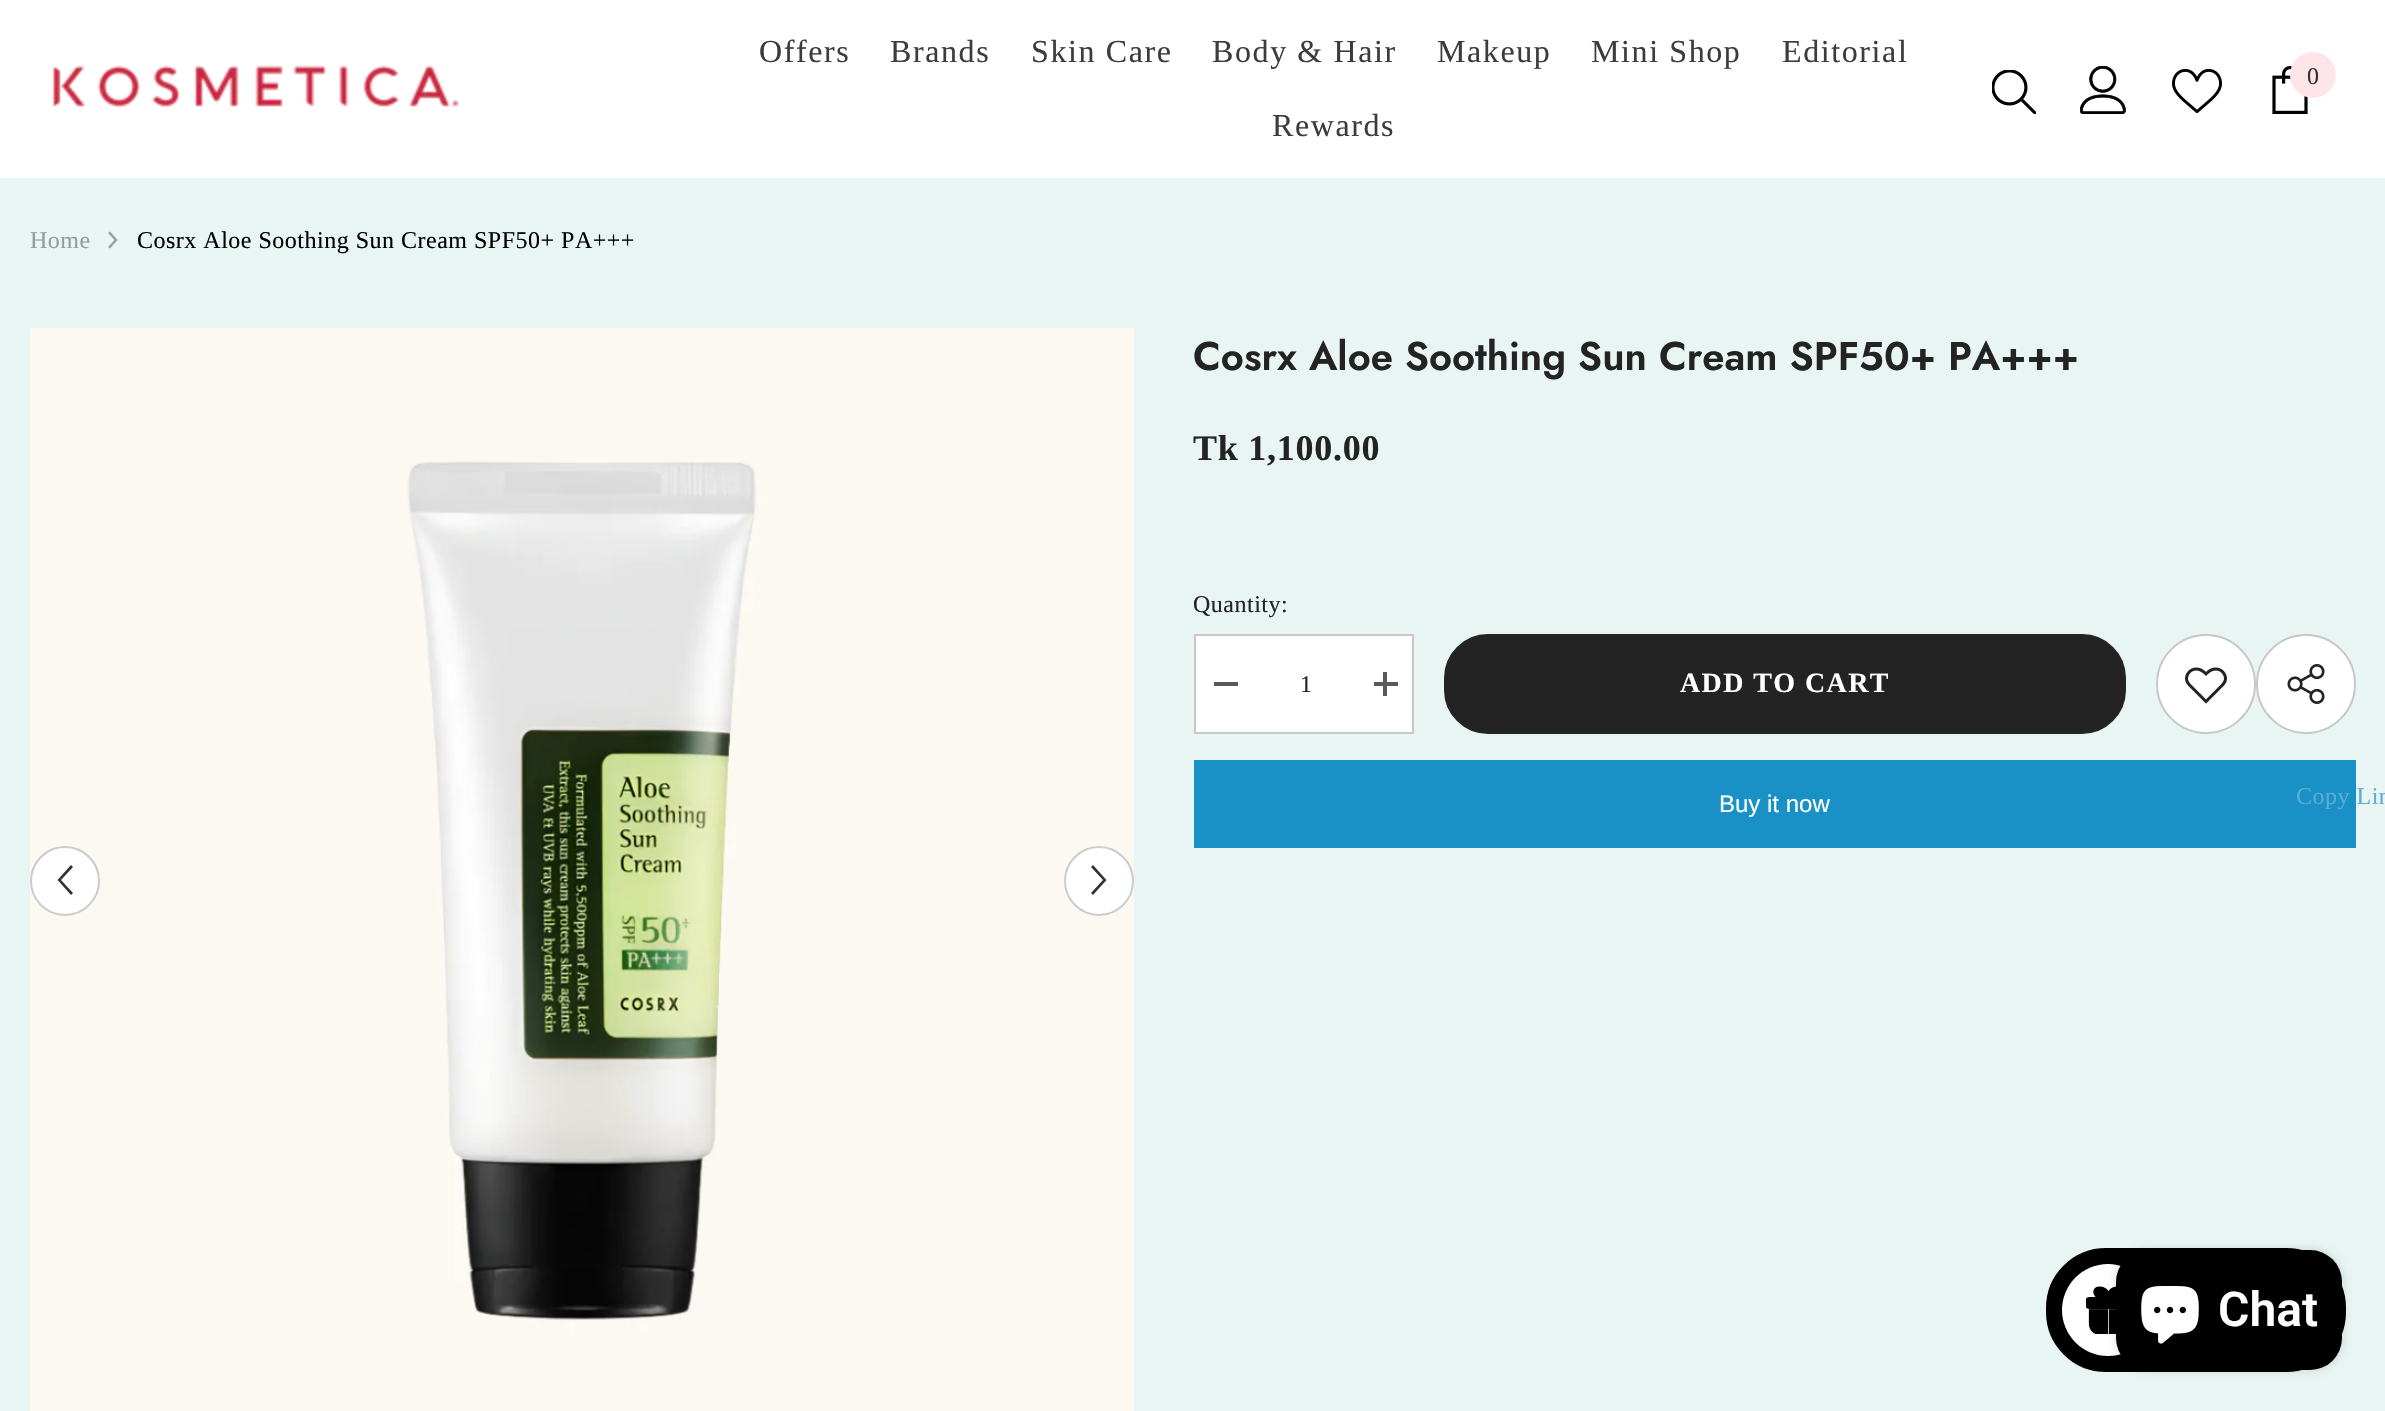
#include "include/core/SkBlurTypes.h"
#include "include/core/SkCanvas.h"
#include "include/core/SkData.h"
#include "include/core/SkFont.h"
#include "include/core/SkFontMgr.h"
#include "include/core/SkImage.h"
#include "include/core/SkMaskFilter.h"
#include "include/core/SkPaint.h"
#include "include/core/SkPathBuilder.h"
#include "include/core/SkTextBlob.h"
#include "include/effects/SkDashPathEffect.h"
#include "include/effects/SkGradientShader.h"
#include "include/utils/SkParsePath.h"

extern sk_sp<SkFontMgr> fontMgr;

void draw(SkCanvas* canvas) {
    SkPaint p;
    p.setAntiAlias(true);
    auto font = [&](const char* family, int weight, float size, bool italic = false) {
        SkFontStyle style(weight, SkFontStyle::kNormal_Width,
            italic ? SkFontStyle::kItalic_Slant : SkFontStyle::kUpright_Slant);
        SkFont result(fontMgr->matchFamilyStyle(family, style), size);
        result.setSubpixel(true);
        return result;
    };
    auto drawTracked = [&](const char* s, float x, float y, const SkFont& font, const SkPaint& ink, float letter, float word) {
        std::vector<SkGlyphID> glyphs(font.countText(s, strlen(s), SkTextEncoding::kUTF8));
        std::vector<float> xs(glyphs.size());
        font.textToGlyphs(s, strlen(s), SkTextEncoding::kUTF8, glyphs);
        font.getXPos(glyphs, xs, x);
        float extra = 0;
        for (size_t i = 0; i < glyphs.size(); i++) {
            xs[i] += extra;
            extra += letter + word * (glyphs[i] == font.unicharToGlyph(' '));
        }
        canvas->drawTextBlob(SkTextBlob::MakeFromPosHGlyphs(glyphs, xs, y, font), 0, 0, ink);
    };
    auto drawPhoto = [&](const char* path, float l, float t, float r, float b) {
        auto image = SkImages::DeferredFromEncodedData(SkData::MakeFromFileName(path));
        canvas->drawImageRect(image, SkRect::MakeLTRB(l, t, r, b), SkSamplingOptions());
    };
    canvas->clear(0xFFE9F5F2);
    p.setColor(0xFFFFFFFF);
    canvas->drawRect(SkRect::MakeLTRB(0, 0, 2385, 178), p);
    drawPhoto("media/1.png", 51, 65, 459, 107);
    auto font1 = font("Liberation Serif", 400, 32);
    p.setColor(0xFF3C3C3C);
    {
        const struct { const char* s; float x, y; } items[] = {
            {"Offers", 759, 62},
            {"Brands", 890, 62},
            {"Skin Care", 1031, 62},
            {"Body & Hair", 1212, 62},
            {"Makeup", 1437, 62},
            {"Mini Shop", 1591, 62},
            {"Editorial", 1782, 62},
            {"Rewards", 1272, 136},
        };
        for (auto [s, x, y] : items) {
            drawTracked(s, x, y, font1, p, 1.6f, 0);
        }
    }
    drawPhoto("media/2.png", 1992, 70, 2036, 114);
    drawPhoto("media/3.png", 2080, 66, 2126, 114);
    drawPhoto("media/4.png", 2172, 68, 2222, 113);
    drawPhoto("media/5.png", 2272, 66, 2308, 114);
    p.setColor(0xFFFFE5E8);
    canvas->drawCircle(2313, 75, 23, p);
    auto font2 = font("Liberation Serif", 400, 24);
    p.setColor(0xFF323232);
    canvas->drawString("0", 2307, 84, font2, p);
    p.setColor(0xFF999999);
    drawTracked("Home", 30, 248, font2, p, 0.5f, 0);
    drawPhoto("media/6.png", 108, 231, 118, 249);
    p.setColor(0xFF000000);
    drawTracked("Cosrx Aloe Soothing Sun Cream SPF50+ PA+++", 137, 248, font2, p, 0.5f, 0);
    drawPhoto("media/7.png", 30, 328, 1134, 1411);
    p.setColor(0xFFFFFFFF);
    canvas->drawCircle(65, 881, 34, p);
    p.setStyle(SkPaint::kStroke_Style);
    p.setStrokeWidth(2);
    p.setColor(0xFFCCCCCC);
    canvas->drawCircle(65, 881, 34, p);
    p.setStyle(SkPaint::kFill_Style);
    p.setColor(0xFF323232);
    canvas->drawPath(SkPathBuilder().moveTo(71, 895).lineTo(73, 893).lineTo(61, 880).lineTo(73, 867).lineTo(71, 865).lineTo(57.5f, 880).lineTo(58.5f, 881).close().detach(), p);
    p.setColor(0xFFFFFFFF);
    canvas->drawCircle(1099, 881, 34, p);
    p.setStyle(SkPaint::kStroke_Style);
    p.setColor(0xFFCCCCCC);
    canvas->drawCircle(1099, 881, 34, p);
    p.setStyle(SkPaint::kFill_Style);
    p.setColor(0xFF323232);
    canvas->drawPath(SkPathBuilder().moveTo(1093, 865).lineTo(1091, 867).lineTo(1103, 880).lineTo(1091, 893).lineTo(1093, 895).lineTo(1106.5f, 880).lineTo(1105.5f, 879).close().detach(), p);
    auto font3 = font("Jost", 600, 40);
    p.setColor(0xFF232323);
    canvas->drawString("Cosrx Aloe Soothing Sun Cream SPF50+ PA+++", 1193, 370, font3, p);
    auto font4 = font("Liberation Serif", 700, 36);
    drawTracked("Tk 1,100.00", 1193, 460, font4, p, 0.75f, 0);
    drawTracked("Quantity:", 1193, 612, font2, p, 0.5f, 0);
    p.setColor(0xFFFFFFFF);
    canvas->drawRect(SkRect::MakeLTRB(1195, 635, 1413, 733), p);
    p.setStyle(SkPaint::kStroke_Style);
    p.setColor(0xFFC7C7C7);
    canvas->drawRect(SkRect::MakeLTRB(1195, 635, 1413, 733), p);
    p.setStyle(SkPaint::kFill_Style);
    p.setColor(0xFF5A5A5A);
    canvas->drawRect(SkRect::MakeLTRB(1214, 682, 1238, 686), p);
    p.setColor(0xFF232323);
    drawTracked("1", 1300, 692, font2, p, 0.5f, 0);
    p.setColor(0xFF5A5A5A);
    canvas->drawRect(SkRect::MakeLTRB(1374, 682, 1398, 686), p);
    canvas->drawRect(SkRect::MakeLTRB(1383, 672, 1387, 696), p);
    p.setColor(0xFF232323);
    canvas->drawRoundRect(SkRect::MakeLTRB(1445, 635, 2125, 733), 43, 43, p);
    p.setStyle(SkPaint::kStroke_Style);
    canvas->drawRoundRect(SkRect::MakeLTRB(1445, 635, 2125, 733), 43, 43, p);
    auto font5 = font("Liberation Serif", 700, 28);
    p.setStyle(SkPaint::kFill_Style);
    p.setColor(0xFFFFFFFF);
    drawTracked("ADD TO CART", 1680, 692, font5, p, 1.4f, 0);
    canvas->drawCircle(2206, 684, 49, p);
    p.setStyle(SkPaint::kStroke_Style);
    p.setColor(0xFFC7C7C7);
    canvas->drawCircle(2206, 684, 49, p);
    drawPhoto("media/8.png", 2185, 667, 2227, 704);
    p.setStyle(SkPaint::kFill_Style);
    p.setColor(0xFFFFFFFF);
    canvas->drawCircle(2306, 684, 49, p);
    p.setStyle(SkPaint::kStroke_Style);
    p.setColor(0xFFC7C7C7);
    canvas->drawCircle(2306, 684, 49, p);
    drawPhoto("media/9.png", 2287, 664, 2325, 704);
    p.setStyle(SkPaint::kFill_Style);
    p.setColor(0xFF1990C6);
    canvas->drawRect(SkRect::MakeLTRB(1194, 760, 2356, 848), p);
    p.setColor(0xFF58AFD3);
    drawTracked("Copy Lin", 2296, 804, font2, p, 0.5f, 0);
    auto font6 = font("Liberation Sans", 400, 24);
    p.setColor(0xFFFFFFFF);
    canvas->drawString("Buy it now", 1719, 812, font6, p);
    p.setColor(0xFF000000);
    canvas->drawRoundRect(SkRect::MakeLTRB(2047, 1249, 2345, 1371), 59, 59, p);
    p.setStyle(SkPaint::kStroke_Style);
    canvas->drawRoundRect(SkRect::MakeLTRB(2047, 1249, 2345, 1371), 59, 59, p);
    p.setStyle(SkPaint::kFill_Style);
    p.setColor(0xFFFFFFFF);
    canvas->drawCircle(2108, 1310, 46, p);
    drawPhoto("media/10.png", 2086, 1286, 2116, 1334);
    p.setColor(0x26000000);
    p.setMaskFilter(SkMaskFilter::MakeBlur(kNormal_SkBlurStyle, 5));
    canvas->drawRoundRect(SkRect::MakeLTRB(2116, 1250, 2342, 1370), 32, 32, p);
    p.setMaskFilter(nullptr);
    p.setColor(0xFF000000);
    canvas->drawRoundRect(SkRect::MakeLTRB(2116, 1250, 2342, 1370), 32, 32, p);
    drawPhoto("media/11.png", 2141, 1286, 2199, 1344);
    auto font7 = font("Roboto", 600, 48);
    p.setColor(0xFFFFFFFF);
    canvas->drawString("Chat", 2218, 1326, font7, p);
}
